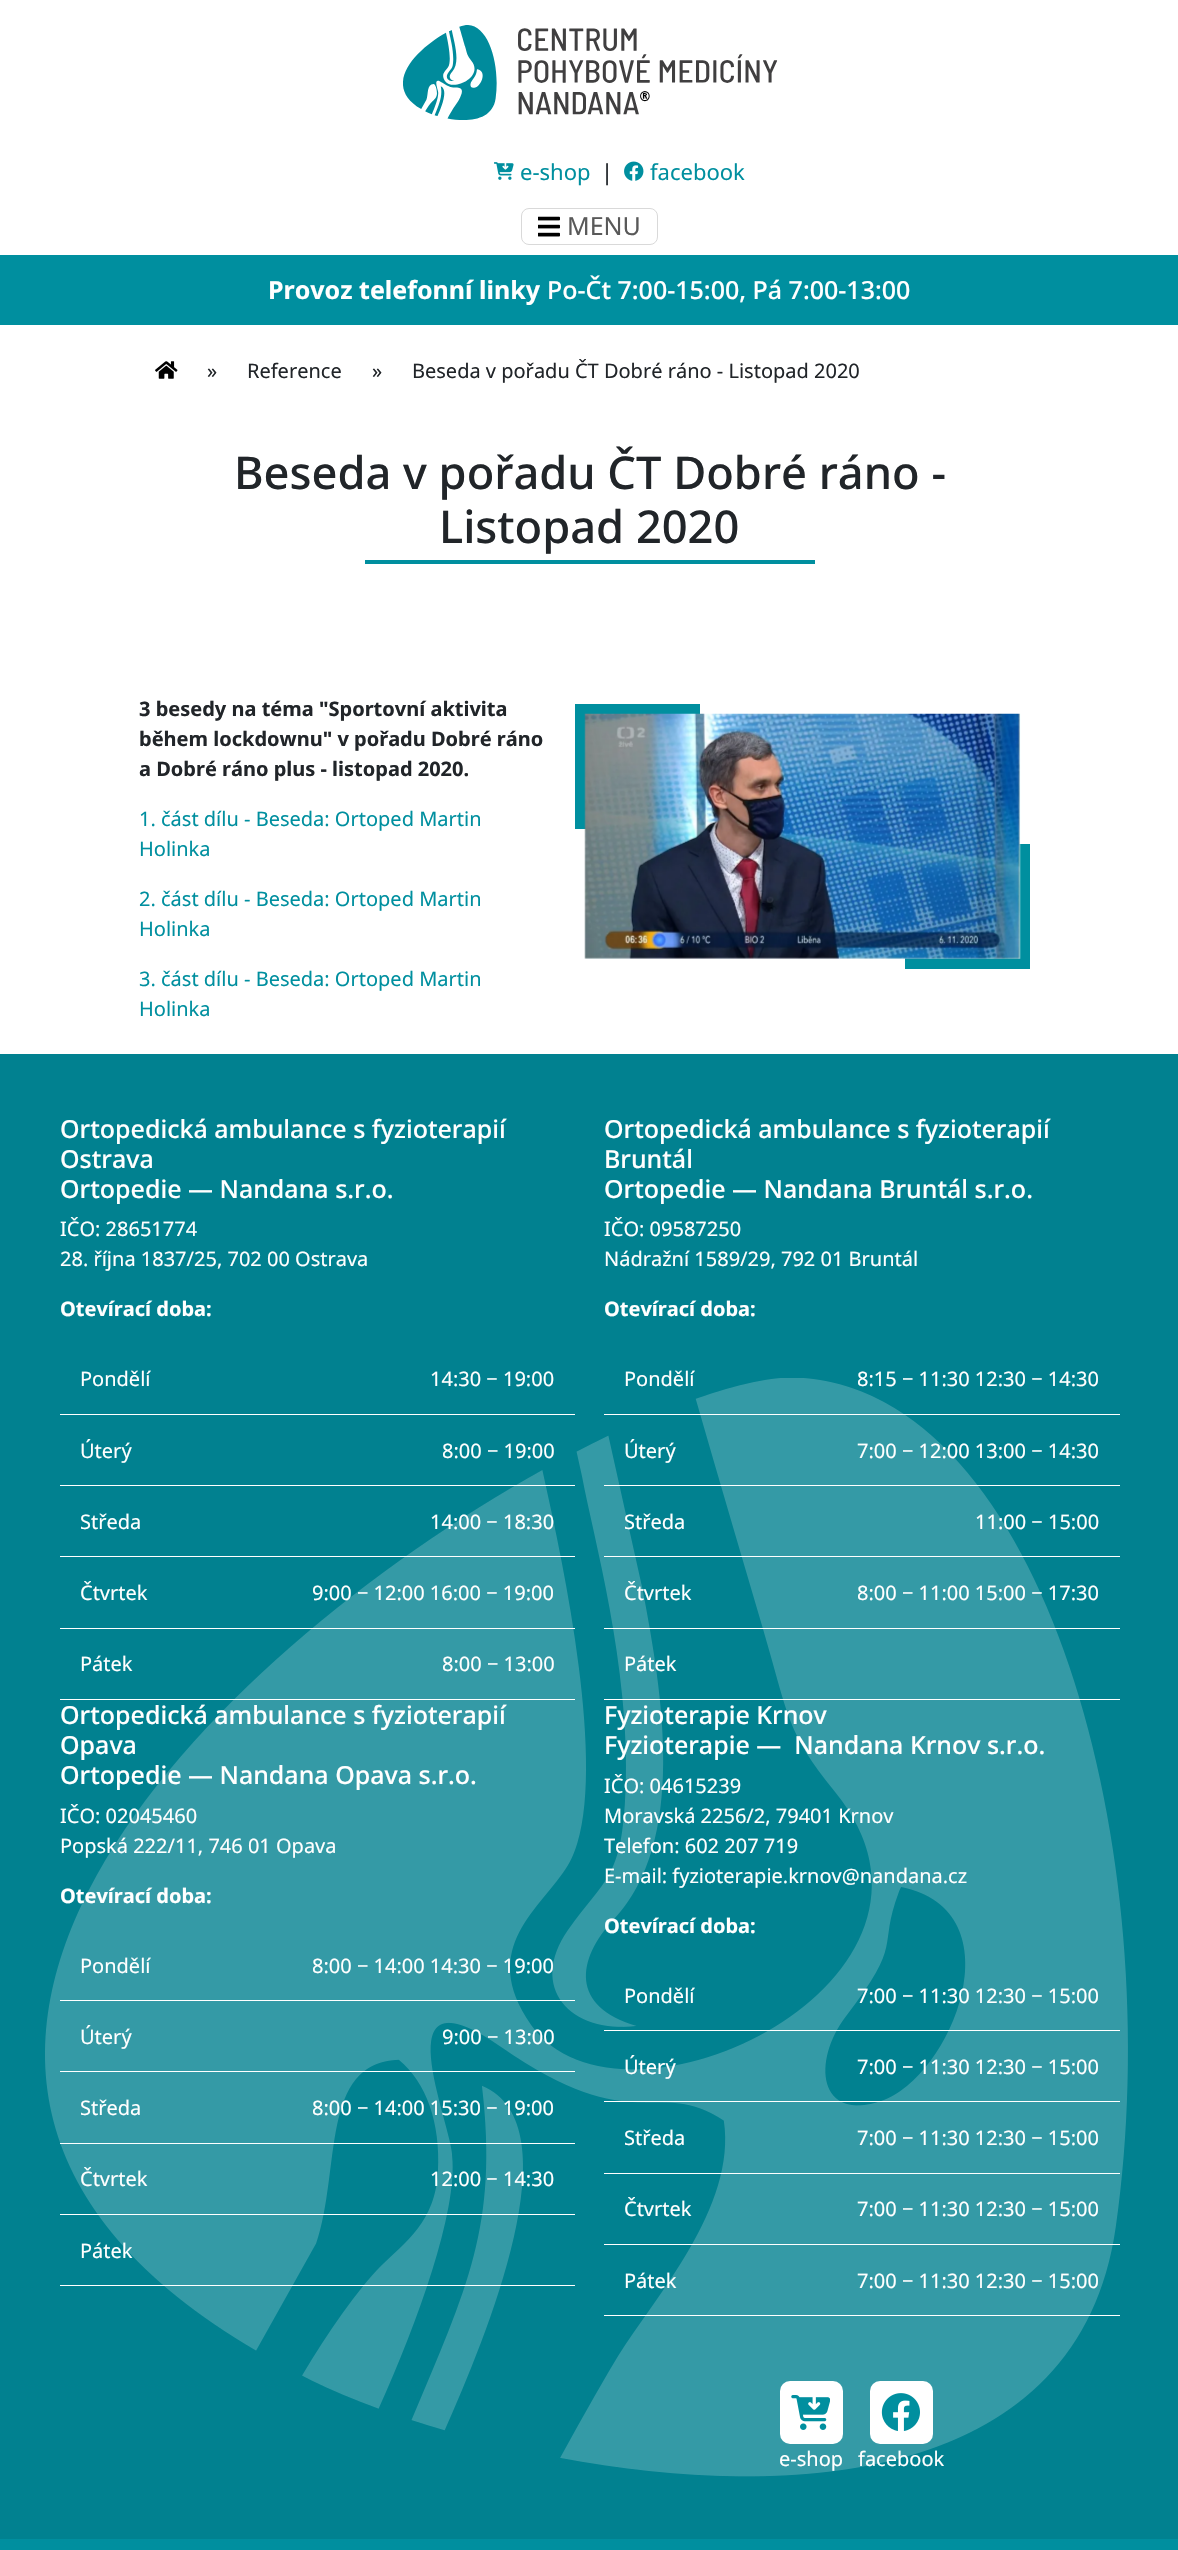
#include "include/core/SkBlurTypes.h"
#include "include/core/SkCanvas.h"
#include "include/core/SkData.h"
#include "include/core/SkFont.h"
#include "include/core/SkFontMgr.h"
#include "include/core/SkImage.h"
#include "include/core/SkMaskFilter.h"
#include "include/core/SkPaint.h"
#include "include/core/SkPathBuilder.h"
#include "include/core/SkTextBlob.h"
#include "include/effects/SkDashPathEffect.h"
#include "include/effects/SkGradientShader.h"
#include "include/utils/SkParsePath.h"

extern sk_sp<SkFontMgr> fontMgr;

void draw(SkCanvas* canvas) {
    SkPaint p;
    p.setAntiAlias(true);
    auto font = [&](const char* family, int weight, float size, bool italic = false) {
        SkFontStyle style(weight, SkFontStyle::kNormal_Width,
            italic ? SkFontStyle::kItalic_Slant : SkFontStyle::kUpright_Slant);
        SkFont result(fontMgr->matchFamilyStyle(family, style), size);
        result.setSubpixel(true);
        return result;
    };
    auto drawPhoto = [&](const char* path, float l, float t, float r, float b) {
        auto image = SkImages::DeferredFromEncodedData(SkData::MakeFromFileName(path));
        canvas->drawImageRect(image, SkRect::MakeLTRB(l, t, r, b), SkSamplingOptions());
    };
    canvas->clear(0xFFFFFFFF);
    drawPhoto("media/1.png", 403, 25, 778, 120);
    drawPhoto("media/2.png", 494, 162, 514, 180);
    auto font1 = font("Noto Sans", 400, 22);
    p.setColor(0xFF008F9F);
    canvas->drawString("e-shop", 520, 180, font1, p);
    p.setColor(0xFF212529);
    canvas->drawString("|", 601, 180, font1, p);
    drawPhoto("media/3.png", 624, 161, 644, 181);
    p.setColor(0xFF008F9F);
    canvas->drawString("facebook", 650, 180, font1, p);
    p.setStyle(SkPaint::kStroke_Style);
    p.setStrokeWidth(1);
    p.setColor(0xFFD9D9D9);
    canvas->drawRoundRect(SkRect::MakeLTRB(521.5f, 208.5f, 657.5f, 244.5f), 7.5f, 7.5f, p);
    drawPhoto("media/4.png", 538, 216, 560, 237);
    auto font2 = font("Noto Sans", 400, 25);
    p.setStyle(SkPaint::kFill_Style);
    p.setColor(0xFF595959);
    canvas->drawString("MENU", 567, 235, font2, p);
    p.setColor(0xFF008F9F);
    canvas->drawRect(SkRect::MakeLTRB(0, 255, 1178, 325), p);
    auto font3 = font("Noto Sans", 700, 25);
    p.setColor(0xFFFFFFFF);
    canvas->drawString("Provoz telefonní linky", 268, 299, font3, p);
    auto font4 = font("Noto Sans", 500, 25);
    canvas->drawString("Po-Čt 7:00-15:00, Pá 7:00-13:00", 547, 299, font4, p);
    drawPhoto("media/5.png", 155, 361, 178, 379);
    auto font5 = font("Noto Sans", 400, 20);
    p.setColor(0xFF212529);
    {
        const struct { const char* s; float x, y; } items[] = {
            {"»", 207, 378},
            {"Reference", 247, 378},
            {"»", 372, 378},
            {"Beseda v pořadu ČT Dobré ráno - Listopad 2020", 412, 378},
        };
        for (auto [s, x, y] : items) {
            canvas->drawString(s, x, y, font5, p);
        }
    }
    auto font6 = font("Noto Sans", 500, 45.2f);
    canvas->drawString("Beseda v pořadu ČT Dobré ráno -", 234, 489, font6, p);
    canvas->drawString("Listopad 2020", 439, 543, font6, p);
    p.setColor(0xFF008F9F);
    canvas->drawRect(SkRect::MakeLTRB(365, 560, 815, 564), p);
    auto font7 = font("Noto Sans", 700, 20);
    p.setColor(0xFF212529);
    {
        const struct { const char* s; float x, y; } items[] = {
            {"3 besedy na téma \"Sportovní aktivita", 139, 716},
            {"během lockdownu\" v pořadu Dobré ráno", 139, 746},
            {"a Dobré ráno plus - listopad 2020.", 139, 776},
        };
        for (auto [s, x, y] : items) {
            canvas->drawString(s, x, y, font7, p);
        }
    }
    p.setColor(0xFF008F9F);
    canvas->drawRect(SkRect::MakeLTRB(575, 704, 700, 829), p);
    canvas->drawRect(SkRect::MakeLTRB(905, 844, 1030, 969), p);
    drawPhoto("media/6.png", 584, 713, 1021, 959);
    {
        const struct { const char* s; float x, y; } items[] = {
            {"1. část dílu - Beseda: Ortoped Martin", 139, 826},
            {"Holinka", 139, 856},
            {"2. část dílu - Beseda: Ortoped Martin", 139, 906},
            {"Holinka", 139, 936},
            {"3. část dílu - Beseda: Ortoped Martin", 139, 986},
            {"Holinka", 139, 1016},
        };
        for (auto [s, x, y] : items) {
            canvas->drawString(s, x, y, font5, p);
        }
    }
    p.setColor(0xFF018190);
    canvas->drawRect(SkRect::MakeLTRB(0, 1054, 1178, 2539), p);
    drawPhoto("media/7.png", 45, 1378, 1128, 2477);
    p.setColor(0xFFFFFFFF);
    {
        const struct { const char* s; float x, y; } items[] = {
            {"Ortopedická ambulance s fyzioterapií", 60, 1138},
            {"Ostrava", 60, 1168},
            {"Ortopedie — Nandana s.r.o.", 60, 1198},
        };
        for (auto [s, x, y] : items) {
            canvas->drawString(s, x, y, font4, p);
        }
    }
    canvas->drawString("IČO: 28651774", 60, 1236, font5, p);
    canvas->drawString("28. října 1837/25, 702 00 Ostrava", 60, 1266, font5, p);
    canvas->drawString("Otevírací doba:", 60, 1316, font7, p);
    canvas->drawString("Pondělí", 80, 1386, font5, p);
    canvas->drawRect(SkRect::MakeLTRB(60, 1414, 575, 1415), p);
    canvas->drawString("14:30 − 19:00", 430, 1386, font5, p);
    canvas->drawString("Úterý", 80, 1458, font5, p);
    canvas->drawRect(SkRect::MakeLTRB(60, 1485, 575, 1486), p);
    canvas->drawString("8:00 − 19:00", 442, 1458, font5, p);
    canvas->drawString("Středa", 80, 1529, font5, p);
    canvas->drawRect(SkRect::MakeLTRB(60, 1556, 575, 1557), p);
    canvas->drawString("14:00 − 18:30", 430, 1529, font5, p);
    canvas->drawString("Čtvrtek", 80, 1600, font5, p);
    canvas->drawRect(SkRect::MakeLTRB(60, 1628, 575, 1629), p);
    canvas->drawString("9:00 − 12:00 16:00 − 19:00", 312, 1600, font5, p);
    canvas->drawString("Pátek", 80, 1671, font5, p);
    canvas->drawRect(SkRect::MakeLTRB(60, 1699, 575, 1700), p);
    canvas->drawString("8:00 − 13:00", 442, 1671, font5, p);
    {
        const struct { const char* s; float x, y; } items[] = {
            {"Ortopedická ambulance s fyzioterapií", 604, 1138},
            {"Bruntál", 604, 1168},
            {"Ortopedie — Nandana Bruntál s.r.o.", 604, 1198},
        };
        for (auto [s, x, y] : items) {
            canvas->drawString(s, x, y, font4, p);
        }
    }
    canvas->drawString("IČO: 09587250", 604, 1236, font5, p);
    canvas->drawString("Nádražní 1589/29, 792 01 Bruntál", 604, 1266, font5, p);
    canvas->drawString("Otevírací doba:", 604, 1316, font7, p);
    canvas->drawString("Pondělí", 624, 1386, font5, p);
    canvas->drawRect(SkRect::MakeLTRB(604, 1414, 1120, 1415), p);
    canvas->drawString("8:15 − 11:30 12:30 − 14:30", 857, 1386, font5, p);
    canvas->drawString("Úterý", 624, 1458, font5, p);
    canvas->drawRect(SkRect::MakeLTRB(604, 1485, 1120, 1486), p);
    canvas->drawString("7:00 − 12:00 13:00 − 14:30", 857, 1458, font5, p);
    canvas->drawString("Středa", 624, 1529, font5, p);
    canvas->drawRect(SkRect::MakeLTRB(604, 1556, 1120, 1557), p);
    canvas->drawString("11:00 − 15:00", 975, 1529, font5, p);
    canvas->drawString("Čtvrtek", 624, 1600, font5, p);
    canvas->drawRect(SkRect::MakeLTRB(604, 1628, 1120, 1629), p);
    canvas->drawString("8:00 − 11:00 15:00 − 17:30", 857, 1600, font5, p);
    canvas->drawString("Pátek", 624, 1671, font5, p);
    canvas->drawRect(SkRect::MakeLTRB(604, 1699, 1120, 1700), p);
    {
        const struct { const char* s; float x, y; } items[] = {
            {"Ortopedická ambulance s fyzioterapií", 60, 1724},
            {"Opava", 60, 1754},
            {"Ortopedie — Nandana Opava s.r.o.", 60, 1784},
        };
        for (auto [s, x, y] : items) {
            canvas->drawString(s, x, y, font4, p);
        }
    }
    canvas->drawString("IČO: 02045460", 60, 1823, font5, p);
    canvas->drawString("Popská 222/11, 746 01 Opava", 60, 1853, font5, p);
    canvas->drawString("Otevírací doba:", 60, 1903, font7, p);
    canvas->drawString("Pondělí", 80, 1973, font5, p);
    canvas->drawRect(SkRect::MakeLTRB(60, 2000, 575, 2001), p);
    canvas->drawString("8:00 − 14:00 14:30 − 19:00", 312, 1973, font5, p);
    canvas->drawString("Úterý", 80, 2044, font5, p);
    canvas->drawRect(SkRect::MakeLTRB(60, 2071, 575, 2072), p);
    canvas->drawString("9:00 − 13:00", 442, 2044, font5, p);
    canvas->drawString("Středa", 80, 2115, font5, p);
    canvas->drawRect(SkRect::MakeLTRB(60, 2143, 575, 2144), p);
    canvas->drawString("8:00 − 14:00 15:30 − 19:00", 312, 2115, font5, p);
    canvas->drawString("Čtvrtek", 80, 2186, font5, p);
    canvas->drawRect(SkRect::MakeLTRB(60, 2214, 575, 2215), p);
    canvas->drawString("12:00 − 14:30", 430, 2186, font5, p);
    canvas->drawString("Pátek", 80, 2258, font5, p);
    canvas->drawRect(SkRect::MakeLTRB(60, 2285, 575, 2286), p);
    canvas->drawString("Fyzioterapie Krnov", 604, 1724, font4, p);
    canvas->drawString("Fyzioterapie —  Nandana Krnov s.r.o.", 604, 1754, font4, p);
    {
        const struct { const char* s; float x, y; } items[] = {
            {"IČO: 04615239", 604, 1793},
            {"Moravská 2256/2, 79401 Krnov", 604, 1823},
            {"Telefon: 602 207 719", 604, 1853},
            {"E-mail: fyzioterapie.krnov@nandana.cz", 604, 1883},
        };
        for (auto [s, x, y] : items) {
            canvas->drawString(s, x, y, font5, p);
        }
    }
    canvas->drawString("Otevírací doba:", 604, 1933, font7, p);
    canvas->drawString("Pondělí", 624, 2003, font5, p);
    canvas->drawRect(SkRect::MakeLTRB(604, 2030, 1120, 2031), p);
    canvas->drawString("7:00 − 11:30 12:30 − 15:00", 857, 2003, font5, p);
    canvas->drawString("Úterý", 624, 2074, font5, p);
    canvas->drawRect(SkRect::MakeLTRB(604, 2101, 1120, 2102), p);
    canvas->drawString("7:00 − 11:30 12:30 − 15:00", 857, 2074, font5, p);
    canvas->drawString("Středa", 624, 2145, font5, p);
    canvas->drawRect(SkRect::MakeLTRB(604, 2173, 1120, 2174), p);
    canvas->drawString("7:00 − 11:30 12:30 − 15:00", 857, 2145, font5, p);
    canvas->drawString("Čtvrtek", 624, 2216, font5, p);
    canvas->drawRect(SkRect::MakeLTRB(604, 2244, 1120, 2245), p);
    canvas->drawString("7:00 − 11:30 12:30 − 15:00", 857, 2216, font5, p);
    canvas->drawString("Pátek", 624, 2288, font5, p);
    canvas->drawRect(SkRect::MakeLTRB(604, 2315, 1120, 2316), p);
    canvas->drawString("7:00 − 11:30 12:30 − 15:00", 857, 2288, font5, p);
    canvas->drawRoundRect(SkRect::MakeLTRB(780, 2381, 843, 2444), 10, 10, p);
    drawPhoto("media/8.png", 791, 2395, 830, 2430);
    canvas->drawString("e-shop", 779, 2466, font5, p);
    canvas->drawRoundRect(SkRect::MakeLTRB(870, 2381, 933, 2444), 10, 10, p);
    drawPhoto("media/9.png", 881, 2393, 920, 2431);
    canvas->drawString("facebook", 858, 2466, font5, p);
    p.setColor(0xFF008F9F);
    canvas->drawRect(SkRect::MakeLTRB(0, 2539, 1178, 2550), p);
}
